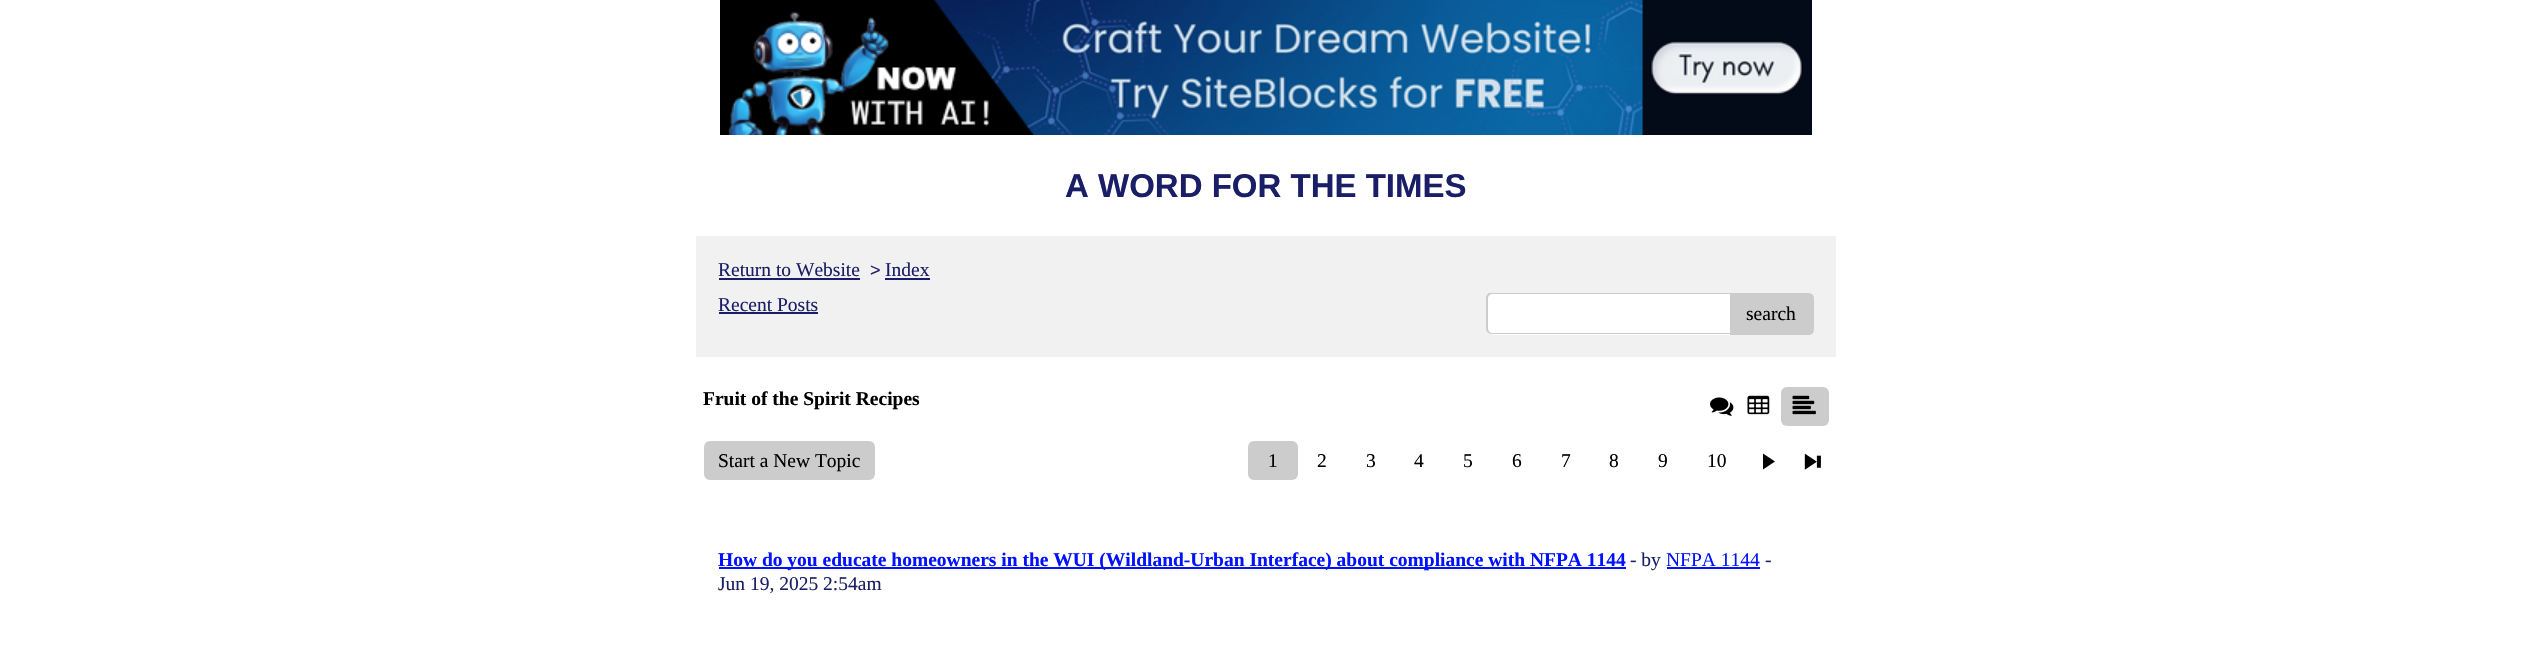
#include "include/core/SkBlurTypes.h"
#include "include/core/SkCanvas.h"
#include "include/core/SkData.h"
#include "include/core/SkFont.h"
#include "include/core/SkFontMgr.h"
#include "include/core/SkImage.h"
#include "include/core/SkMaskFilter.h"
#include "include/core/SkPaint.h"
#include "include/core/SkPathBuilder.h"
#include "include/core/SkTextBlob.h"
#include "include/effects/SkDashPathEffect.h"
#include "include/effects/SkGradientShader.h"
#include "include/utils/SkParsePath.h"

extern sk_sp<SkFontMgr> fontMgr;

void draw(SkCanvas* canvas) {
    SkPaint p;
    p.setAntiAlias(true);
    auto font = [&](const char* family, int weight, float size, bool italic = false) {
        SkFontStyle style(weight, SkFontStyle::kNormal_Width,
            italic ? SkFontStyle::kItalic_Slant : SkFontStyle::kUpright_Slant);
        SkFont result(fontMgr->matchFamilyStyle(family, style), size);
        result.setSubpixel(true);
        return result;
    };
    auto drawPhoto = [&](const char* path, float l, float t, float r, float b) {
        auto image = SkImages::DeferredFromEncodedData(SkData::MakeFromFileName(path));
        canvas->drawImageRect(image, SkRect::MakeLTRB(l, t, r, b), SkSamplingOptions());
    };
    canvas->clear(0xFFFFFFFF);
    drawPhoto("media/1.png", 720, 0, 1812, 135);
    auto font1 = font("Liberation Sans", 700, 33);
    p.setColor(0xFF191E66);
    canvas->drawString("A WORD FOR THE TIMES", 1065, 197, font1, p);
    p.setColor(0xFFF1F1F1);
    canvas->drawRect(SkRect::MakeLTRB(696, 236, 1836, 357), p);
    auto font2 = font("Liberation Serif", 400, 19.5f);
    p.setColor(0xFF191E66);
    canvas->drawString("Return to Website", 718, 276, font2, p);
    canvas->drawRect(SkRect::MakeLTRB(719, 278, 860, 280), p);
    auto font3 = font("Liberation Sans", 400, 18);
    canvas->drawString(">", 870, 276, font3, p);
    canvas->drawString("Index", 885, 276, font2, p);
    canvas->drawRect(SkRect::MakeLTRB(885, 278, 930, 280), p);
    canvas->drawString("Recent Posts", 718, 311, font2, p);
    canvas->drawRect(SkRect::MakeLTRB(719, 312, 818, 314), p);
    p.setColor(0xFFFFFFFF);
    canvas->drawRoundRect(SkRect::MakeLTRB(1487, 293, 1799, 335), 6, 6, p);
    canvas->save();
    canvas->clipRect(SkRect::MakeLTRB(1481, 293, 1814, 335));
    p.setColor(0xFFCCCCCC);
    canvas->drawPath(SkPathBuilder(SkPathFillType::kEvenOdd).moveTo(1492, 292).lineTo(1792, 292).cubicTo(1796, 292, 1798, 295, 1798, 298).lineTo(1798, 328).cubicTo(1798, 332, 1796, 334, 1792, 334).lineTo(1492, 334).cubicTo(1489, 334, 1486, 332, 1486, 328).lineTo(1486, 298).cubicTo(1486, 295, 1489, 292, 1492, 292).close().moveTo(1492, 294).lineTo(1792, 294).cubicTo(1796, 294, 1798, 296, 1798, 298).lineTo(1798, 328).cubicTo(1798, 331, 1796, 333, 1792, 333).lineTo(1492, 333).cubicTo(1490, 333, 1488, 331, 1488, 328).lineTo(1488, 298).cubicTo(1488, 296, 1490, 294, 1492, 294).close().detach(), p);
    canvas->restore();
    canvas->drawPath(SkPathBuilder().moveTo(1731, 294).lineTo(1808, 294).cubicTo(1811, 294, 1813, 296, 1813, 299).lineTo(1813, 329).cubicTo(1813, 332, 1811, 334, 1808, 334).lineTo(1731, 334).close().detach(), p);
    p.setStyle(SkPaint::kStroke_Style);
    p.setStrokeWidth(2);
    canvas->drawPath(SkPathBuilder().moveTo(1731, 294).lineTo(1808, 294).cubicTo(1811, 294, 1813, 296, 1813, 299).lineTo(1813, 329).cubicTo(1813, 332, 1811, 334, 1808, 334).lineTo(1731, 334).close().detach(), p);
    p.setStyle(SkPaint::kFill_Style);
    p.setColor(0xFF000000);
    canvas->drawString("search", 1746, 320, font2, p);
    auto font4 = font("Liberation Serif", 700, 19.5f);
    canvas->drawString("Fruit of the Spirit Recipes", 703, 405, font4, p);
    drawPhoto("media/2.png", 1710, 397, 1734, 416);
    drawPhoto("media/3.png", 1747, 395, 1770, 415);
    p.setColor(0xFFCCCCCC);
    canvas->drawRoundRect(SkRect::MakeLTRB(1781, 387, 1829, 426), 6, 6, p);
    drawPhoto("media/4.png", 1792, 395, 1816, 415);
    canvas->drawRoundRect(SkRect::MakeLTRB(704, 441, 875, 480), 6, 6, p);
    p.setColor(0xFF000000);
    canvas->drawString("Start a New Topic", 718, 467, font2, p);
    p.setColor(0xFFCCCCCC);
    canvas->drawRoundRect(SkRect::MakeLTRB(1248, 441, 1298, 480), 6, 6, p);
    p.setColor(0xFF000000);
    {
        const struct { const char* s; float x, y; } items[] = {
            {"1", 1268, 467},
            {"2", 1317, 467},
            {"3", 1366, 467},
            {"4", 1414, 467},
            {"5", 1463, 467},
            {"6", 1512, 467},
            {"7", 1561, 467},
            {"8", 1609, 467},
            {"9", 1658, 467},
            {"10", 1707, 467},
        };
        for (auto [s, x, y] : items) {
            canvas->drawString(s, x, y, font2, p);
        }
    }
    canvas->drawPath(SkPathBuilder().moveTo(1763, 453.5f).lineTo(1775, 461.5f).lineTo(1763, 469.5f).close().detach(), p);
    drawPhoto("media/5.png", 1804, 453, 1821, 470);
    p.setColor(0xFF0011FF);
    canvas->drawRect(SkRect::MakeLTRB(719, 567, 1626, 569), p);
    canvas->drawString("How do you educate homeowners in the WUI (Wildland-Urban Interface) about compliance with NFPA 1144", 718, 566, font4, p);
    p.setColor(0xFF191E66);
    canvas->drawString("- by", 1630, 566, font2, p);
    p.setColor(0xFF0011FF);
    canvas->drawString("NFPA 1144", 1666, 566, font2, p);
    canvas->drawRect(SkRect::MakeLTRB(1667, 567, 1760, 569), p);
    p.setColor(0xFF191E66);
    canvas->drawString("-", 1765, 566, font2, p);
    canvas->drawString("Jun 19, 2025 2:54am", 718, 590, font2, p);
}
